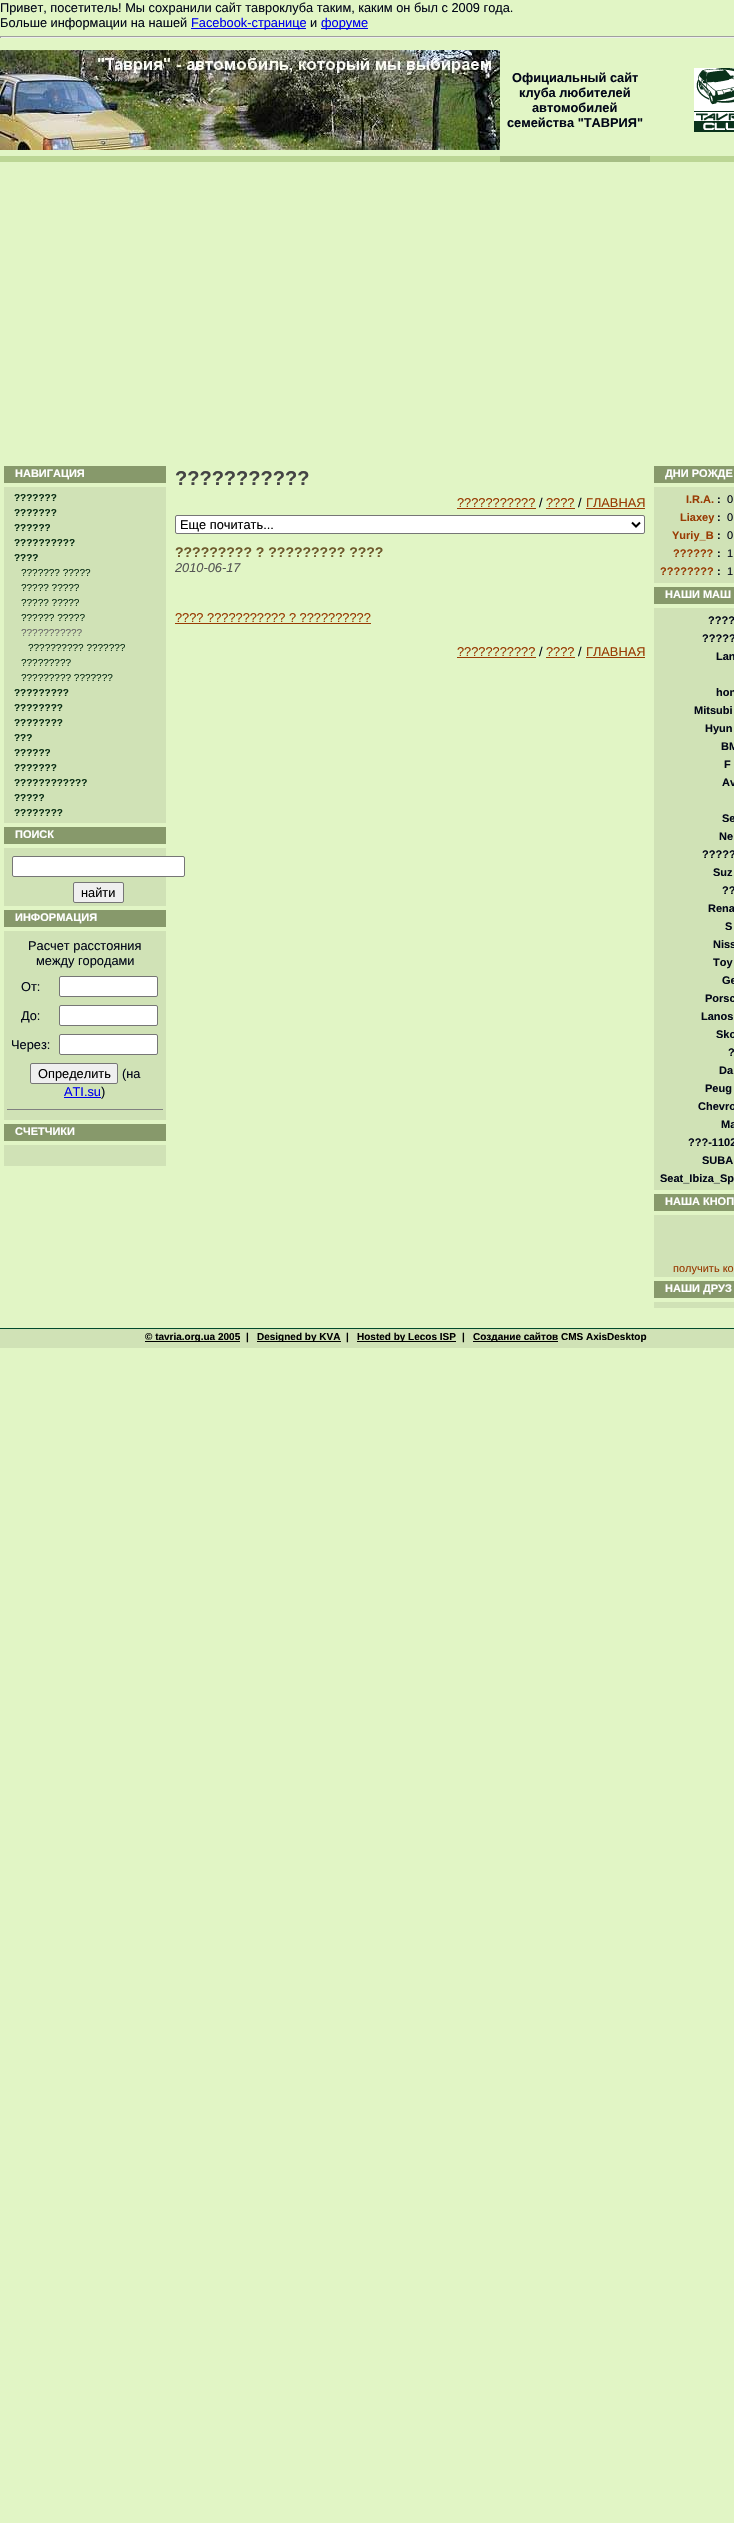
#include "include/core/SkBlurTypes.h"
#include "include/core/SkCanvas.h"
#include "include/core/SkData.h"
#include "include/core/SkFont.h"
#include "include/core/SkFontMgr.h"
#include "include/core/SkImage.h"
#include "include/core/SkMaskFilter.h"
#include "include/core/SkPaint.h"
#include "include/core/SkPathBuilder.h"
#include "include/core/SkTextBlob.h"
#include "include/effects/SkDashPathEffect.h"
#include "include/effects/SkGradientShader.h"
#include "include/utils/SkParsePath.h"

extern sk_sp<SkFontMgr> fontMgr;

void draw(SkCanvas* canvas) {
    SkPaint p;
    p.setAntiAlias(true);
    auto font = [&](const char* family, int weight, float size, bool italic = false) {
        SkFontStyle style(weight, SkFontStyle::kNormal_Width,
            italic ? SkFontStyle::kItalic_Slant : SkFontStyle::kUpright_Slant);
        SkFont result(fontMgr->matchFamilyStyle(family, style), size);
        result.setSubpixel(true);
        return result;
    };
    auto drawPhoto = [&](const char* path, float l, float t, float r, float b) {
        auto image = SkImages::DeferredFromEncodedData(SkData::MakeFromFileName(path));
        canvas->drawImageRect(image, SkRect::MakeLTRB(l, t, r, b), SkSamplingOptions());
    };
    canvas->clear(0xFFE1F5C5);
    auto font1 = font("Liberation Sans", 400, 12.8f);
    p.setColor(0xFF020718);
    canvas->drawString("Привет, посетитель! Мы сохранили сайт тавроклуба таким, каким он был с 2009 года.", 0, 12, font1, p);
    canvas->drawString("Больше информации на нашей", 0, 27, font1, p);
    p.setColor(0xFF0000EE);
    canvas->drawRect(SkRect::MakeLTRB(191, 28, 306, 29), p);
    canvas->drawString("Facebook-странице", 191, 27, font1, p);
    p.setColor(0xFF020718);
    canvas->drawString("и", 310, 27, font1, p);
    p.setColor(0xFF0000EE);
    canvas->drawRect(SkRect::MakeLTRB(321, 28, 368, 29), p);
    canvas->drawString("форуме", 321, 27, font1, p);
    {
        const struct { float l, t, r, b; SkColor color; } items[] = {
            {0, 36, 734, 37, 0xFF9F9F9F},
            {0, 37, 734, 38, 0xFFEEEEEE},
            {0, 36, 1, 38, 0xFF9F9F9F},
        };
        for (auto [l, t, r, b, color] : items) {
            p.setColor(color);
            canvas->drawRect(SkRect::MakeLTRB(l, t, r, b), p);
        }
    }
    drawPhoto("media/1.png", 0, 50, 500, 150);
    auto font2 = font("Liberation Sans", 700, 12.8f);
    p.setColor(0xFF020718);
    {
        const struct { const char* s; float x, y; } items[] = {
            {"Официальный сайт", 512, 82},
            {"клуба любителей", 519, 97},
            {"автомобилей", 532, 112},
            {"семейства \"ТАВРИЯ\"", 507, 127},
        };
        for (auto [s, x, y] : items) {
            canvas->drawString(s, x, y, font2, p);
        }
    }
    drawPhoto("media/2.png", 694, 68, 734, 132);
    {
        const struct { float l, t, r, b; SkColor color; } items[] = {
            {0, 156, 500, 162, 0xFFBCD695},
            {500, 156, 650, 162, 0xFFA6BD85},
            {650, 156, 734, 162, 0xFFBCD695},
            {4, 466, 166, 483, 0xFF87996B},
        };
        for (auto [l, t, r, b, color] : items) {
            p.setColor(color);
            canvas->drawRect(SkRect::MakeLTRB(l, t, r, b), p);
        }
    }
    auto font3 = font("Liberation Sans", 700, 11);
    p.setColor(0xFFFFFFFF);
    canvas->drawString("НАВИГАЦИЯ", 15, 477, font3, p);
    p.setColor(0xFFD0E2B6);
    canvas->drawRect(SkRect::MakeLTRB(4, 487, 166, 823), p);
    auto font4 = font("Liberation Sans", 700, 10);
    p.setColor(0xFF092E14);
    {
        const struct { const char* s; float x, y; } items[] = {
            {"?\077?\077?\077?", 14, 501},
            {"?\077?\077?\077?", 14, 516},
            {"?\077?\077?\077", 14, 531},
            {"?\077?\077?\077?\077?\077", 14, 546},
            {"?\077?\077", 14, 561},
        };
        for (auto [s, x, y] : items) {
            canvas->drawString(s, x, y, font4, p);
        }
    }
    auto font5 = font("Liberation Sans", 400, 10);
    {
        const struct { const char* s; float x, y; } items[] = {
            {"?\077?\077?\077? ?\077?\077?", 21, 576},
            {"?\077?\077? ?\077?\077?", 21, 591},
            {"?\077?\077? ?\077?\077?", 21, 606},
            {"?\077?\077?\077 ?\077?\077?", 21, 621},
        };
        for (auto [s, x, y] : items) {
            canvas->drawString(s, x, y, font5, p);
        }
    }
    p.setColor(0xFF666666);
    canvas->drawString("?\077?\077?\077?\077?\077?", 21, 636, font5, p);
    p.setColor(0xFF092E14);
    {
        const struct { const char* s; float x, y; } items[] = {
            {"?\077?\077?\077?\077?\077 ?\077?\077?\077?", 28, 651},
            {"?\077?\077?\077?\077?", 21, 666},
            {"?\077?\077?\077?\077? ?\077?\077?\077?", 21, 681},
        };
        for (auto [s, x, y] : items) {
            canvas->drawString(s, x, y, font5, p);
        }
    }
    {
        const struct { const char* s; float x, y; } items[] = {
            {"?\077?\077?\077?\077?", 14, 696},
            {"?\077?\077?\077?\077", 14, 711},
            {"?\077?\077?\077?\077", 14, 726},
            {"?\077?", 14, 741},
            {"?\077?\077?\077", 14, 756},
            {"?\077?\077?\077?", 14, 771},
            {"?\077?\077?\077?\077?\077?\077", 14, 786},
            {"?\077?\077?", 14, 801},
            {"?\077?\077?\077?\077", 14, 816},
        };
        for (auto [s, x, y] : items) {
            canvas->drawString(s, x, y, font4, p);
        }
    }
    p.setColor(0xFF87996B);
    canvas->drawRect(SkRect::MakeLTRB(4, 827, 166, 844), p);
    p.setColor(0xFFFFFFFF);
    canvas->drawString("ПОИСК", 15, 838, font3, p);
    p.setColor(0xFFD0E2B6);
    canvas->drawRect(SkRect::MakeLTRB(4, 848, 166, 906), p);
    p.setColor(0xFFFFFFFF);
    canvas->drawRoundRect(SkRect::MakeLTRB(12.5f, 856.5f, 184.5f, 876.5f), 1.5f, 1.5f, p);
    p.setStyle(SkPaint::kStroke_Style);
    p.setStrokeWidth(1);
    p.setColor(0xFF767676);
    canvas->drawRoundRect(SkRect::MakeLTRB(12.5f, 856.5f, 184.5f, 876.5f), 1.5f, 1.5f, p);
    p.setStyle(SkPaint::kFill_Style);
    p.setColor(0xFFEFEFEF);
    canvas->drawRoundRect(SkRect::MakeLTRB(73.5f, 882.5f, 123.5f, 902.5f), 1.5f, 1.5f, p);
    p.setStyle(SkPaint::kStroke_Style);
    p.setColor(0xFF767676);
    canvas->drawRoundRect(SkRect::MakeLTRB(73.5f, 882.5f, 123.5f, 902.5f), 1.5f, 1.5f, p);
    p.setStyle(SkPaint::kFill_Style);
    p.setColor(0xFF000000);
    canvas->drawString("найти", 81, 897, font1, p);
    p.setColor(0xFF87996B);
    canvas->drawRect(SkRect::MakeLTRB(4, 910, 166, 927), p);
    p.setColor(0xFFFFFFFF);
    canvas->drawString("ИНФОРМАЦИЯ", 15, 921, font3, p);
    p.setColor(0xFFD0E2B6);
    canvas->drawRect(SkRect::MakeLTRB(4, 931, 166, 1120), p);
    p.setColor(0xFF020718);
    {
        const struct { const char* s; float x, y; } items[] = {
            {"Расчет расстояния", 28, 950},
            {"между городами", 36, 965},
            {"От:", 21, 991},
        };
        for (auto [s, x, y] : items) {
            canvas->drawString(s, x, y, font1, p);
        }
    }
    p.setColor(0xFFFFFFFF);
    canvas->drawRoundRect(SkRect::MakeLTRB(59.5f, 976.5f, 157.5f, 996.5f), 1.5f, 1.5f, p);
    p.setStyle(SkPaint::kStroke_Style);
    p.setColor(0xFF767676);
    canvas->drawRoundRect(SkRect::MakeLTRB(59.5f, 976.5f, 157.5f, 996.5f), 1.5f, 1.5f, p);
    p.setStyle(SkPaint::kFill_Style);
    p.setColor(0xFF020718);
    canvas->drawString("До:", 21, 1020, font1, p);
    p.setColor(0xFFFFFFFF);
    canvas->drawRoundRect(SkRect::MakeLTRB(59.5f, 1005.5f, 157.5f, 1025.5f), 1.5f, 1.5f, p);
    p.setStyle(SkPaint::kStroke_Style);
    p.setColor(0xFF767676);
    canvas->drawRoundRect(SkRect::MakeLTRB(59.5f, 1005.5f, 157.5f, 1025.5f), 1.5f, 1.5f, p);
    p.setStyle(SkPaint::kFill_Style);
    p.setColor(0xFF020718);
    canvas->drawString("Через:", 11, 1049, font1, p);
    p.setColor(0xFFFFFFFF);
    canvas->drawRoundRect(SkRect::MakeLTRB(59.5f, 1034.5f, 157.5f, 1054.5f), 1.5f, 1.5f, p);
    p.setStyle(SkPaint::kStroke_Style);
    p.setColor(0xFF767676);
    canvas->drawRoundRect(SkRect::MakeLTRB(59.5f, 1034.5f, 157.5f, 1054.5f), 1.5f, 1.5f, p);
    p.setStyle(SkPaint::kFill_Style);
    p.setColor(0xFFEFEFEF);
    canvas->drawRoundRect(SkRect::MakeLTRB(30.5f, 1063.5f, 117.5f, 1083.5f), 1.5f, 1.5f, p);
    p.setStyle(SkPaint::kStroke_Style);
    p.setColor(0xFF767676);
    canvas->drawRoundRect(SkRect::MakeLTRB(30.5f, 1063.5f, 117.5f, 1083.5f), 1.5f, 1.5f, p);
    p.setStyle(SkPaint::kFill_Style);
    p.setColor(0xFF000000);
    canvas->drawString("Определить", 38, 1078, font1, p);
    p.setColor(0xFF020718);
    canvas->drawString("(на", 122, 1078, font1, p);
    p.setColor(0xFF0000EE);
    canvas->drawString("ATI.su", 64, 1096, font1, p);
    p.setColor(0xFF020718);
    canvas->drawString(")", 101, 1096, font1, p);
    {
        const struct { float l, t, r, b; SkColor color; } items[] = {
            {64, 1097, 101, 1098, 0xFF0000EE},
            {7, 1109, 163, 1110, 0xFF808080},
            {4, 1124, 166, 1141, 0xFF87996B},
        };
        for (auto [l, t, r, b, color] : items) {
            p.setColor(color);
            canvas->drawRect(SkRect::MakeLTRB(l, t, r, b), p);
        }
    }
    p.setColor(0xFFFFFFFF);
    canvas->drawString("СЧЕТЧИКИ", 15, 1135, font3, p);
    p.setColor(0xFFD0E2B6);
    canvas->drawRect(SkRect::MakeLTRB(4, 1145, 166, 1166), p);
    auto font6 = font("Liberation Sans", 700, 20);
    p.setColor(0xFF444444);
    canvas->drawString("?\077?\077?\077?\077?\077?", 175, 485, font6, p);
    p.setColor(0xFF993C04);
    canvas->drawString("?\077?\077?\077?\077?\077?", 457, 507, font1, p);
    canvas->drawRect(SkRect::MakeLTRB(457, 508, 536, 509), p);
    p.setColor(0xFF020718);
    canvas->drawString("/", 539, 507, font1, p);
    p.setColor(0xFF993C04);
    canvas->drawString("?\077?\077", 546, 507, font1, p);
    canvas->drawRect(SkRect::MakeLTRB(546, 508, 575, 509), p);
    p.setColor(0xFF020718);
    canvas->drawString("/", 578, 507, font1, p);
    p.setColor(0xFF993C04);
    canvas->drawString("ГЛАВНАЯ", 586, 507, font1, p);
    canvas->drawRect(SkRect::MakeLTRB(586, 508, 645, 509), p);
    p.setColor(0xFFFFFFFF);
    canvas->drawRoundRect(SkRect::MakeLTRB(175.5f, 515.5f, 644.5f, 533.5f), 1.5f, 1.5f, p);
    p.setStyle(SkPaint::kStroke_Style);
    p.setColor(0xFF767676);
    canvas->drawRoundRect(SkRect::MakeLTRB(175.5f, 515.5f, 644.5f, 533.5f), 1.5f, 1.5f, p);
    p.setStrokeWidth(2);
    p.setColor(0xFF000000);
    canvas->drawPath(SkPathBuilder().moveTo(632, 522.5f).lineTo(636, 526.5f).lineTo(640, 522.5f).detach(), p);
    p.setStyle(SkPaint::kFill_Style);
    canvas->drawString("Еще почитать...", 180, 529, font1, p);
    auto font7 = font("Liberation Sans", 700, 14);
    p.setColor(0xFF6F5A2D);
    canvas->drawString("?\077?\077?\077?\077? ? ?\077?\077?\077?\077? ?\077?\077", 175, 557, font7, p);
    auto font8 = font("Liberation Sans", 400, 12.8f, true);
    p.setColor(0xFF555555);
    canvas->drawString("2010-06-17", 175, 572, font8, p);
    p.setColor(0xFF993C04);
    canvas->drawString("?\077?\077 ?\077?\077?\077?\077?\077? ? ?\077?\077?\077?\077?\077", 175, 622, font1, p);
    canvas->drawRect(SkRect::MakeLTRB(175, 623, 371, 624), p);
    canvas->drawString("?\077?\077?\077?\077?\077?", 457, 656, font1, p);
    canvas->drawRect(SkRect::MakeLTRB(457, 657, 536, 658), p);
    p.setColor(0xFF020718);
    canvas->drawString("/", 539, 656, font1, p);
    p.setColor(0xFF993C04);
    canvas->drawString("?\077?\077", 546, 656, font1, p);
    canvas->drawRect(SkRect::MakeLTRB(546, 657, 575, 658), p);
    p.setColor(0xFF020718);
    canvas->drawString("/", 578, 656, font1, p);
    p.setColor(0xFF993C04);
    canvas->drawString("ГЛАВНАЯ", 586, 656, font1, p);
    canvas->drawRect(SkRect::MakeLTRB(586, 657, 645, 658), p);
    p.setColor(0xFF87996B);
    canvas->drawRect(SkRect::MakeLTRB(654, 466, 734, 483), p);
    p.setColor(0xFFFFFFFF);
    canvas->drawString("ДНИ РОЖДЕ", 665, 477, font3, p);
    p.setColor(0xFFD0E2B6);
    canvas->drawRect(SkRect::MakeLTRB(654, 487, 734, 583), p);
    p.setColor(0xFF993C04);
    canvas->drawString("I.R.A.", 686, 503, font3, p);
    p.setColor(0xFF020718);
    canvas->drawString(":", 717, 503, font3, p);
    auto font9 = font("Liberation Sans", 400, 11);
    canvas->drawString("0", 727, 503, font9, p);
    p.setColor(0xFF993C04);
    canvas->drawString("Liaxey", 680, 521, font3, p);
    p.setColor(0xFF020718);
    canvas->drawString(":", 717, 521, font3, p);
    canvas->drawString("0", 727, 521, font9, p);
    p.setColor(0xFF993C04);
    canvas->drawString("Yuriy_B", 672, 539, font3, p);
    p.setColor(0xFF020718);
    canvas->drawString(":", 717, 539, font3, p);
    canvas->drawString("0", 727, 539, font9, p);
    p.setColor(0xFF993C04);
    canvas->drawString("?\077?\077?\077", 673, 557, font3, p);
    p.setColor(0xFF020718);
    canvas->drawString(":", 717, 557, font3, p);
    canvas->drawString("1", 727, 557, font9, p);
    p.setColor(0xFF993C04);
    canvas->drawString("?\077?\077?\077?\077", 660, 575, font3, p);
    p.setColor(0xFF020718);
    canvas->drawString(":", 717, 575, font3, p);
    canvas->drawString("1", 727, 575, font9, p);
    p.setColor(0xFF87996B);
    canvas->drawRect(SkRect::MakeLTRB(654, 587, 734, 604), p);
    p.setColor(0xFFFFFFFF);
    canvas->drawString("НАШИ МАШ", 665, 598, font3, p);
    p.setColor(0xFFD0E2B6);
    canvas->drawRect(SkRect::MakeLTRB(654, 608, 734, 1190), p);
    p.setColor(0xFF020718);
    {
        const struct { const char* s; float x, y; } items[] = {
            {"?\077?\077", 708, 624},
            {"?\077?\077?", 702, 642},
            {"Lan", 716, 660},
            {"hon", 716, 696},
            {"Mitsubi", 694, 714},
            {"Hyun", 705, 732},
            {"BM", 721, 750},
            {"F", 724, 768},
            {"Av", 722, 786},
            {"Se", 722, 822},
            {"Ne", 719, 840},
            {"?\077?\077?", 702, 858},
            {"Suz", 713, 876},
            {"?\077", 722, 894},
            {"Rena", 708, 912},
            {"S", 725, 930},
            {"Niss", 713, 948},
            {"Toy", 713, 966},
            {"Ge", 722, 984},
            {"Porsc", 705, 1002},
            {"Lanos", 701, 1020},
            {"Sko", 716, 1038},
            {"?", 728, 1056},
            {"Da", 719, 1074},
            {"Peug", 705, 1092},
            {"Chevro", 698, 1110},
            {"Ma", 721, 1128},
            {"?\077?-1102", 688, 1146},
            {"SUBA", 702, 1164},
            {"Seat_Ibiza_Sp", 660, 1182},
        };
        for (auto [s, x, y] : items) {
            canvas->drawString(s, x, y, font3, p);
        }
    }
    p.setColor(0xFF87996B);
    canvas->drawRect(SkRect::MakeLTRB(654, 1194, 734, 1211), p);
    p.setColor(0xFFFFFFFF);
    canvas->drawString("НАША КНОП", 665, 1205, font3, p);
    p.setColor(0xFFD0E2B6);
    canvas->drawRect(SkRect::MakeLTRB(654, 1215, 734, 1277), p);
    p.setColor(0xFF993C04);
    canvas->drawString("получить ко", 673, 1272, font9, p);
    p.setColor(0xFF87996B);
    canvas->drawRect(SkRect::MakeLTRB(654, 1281, 734, 1298), p);
    p.setColor(0xFFFFFFFF);
    canvas->drawString("НАШИ ДРУЗ", 665, 1292, font3, p);
    {
        const struct { float l, t, r, b; SkColor color; } items[] = {
            {654, 1302, 734, 1308, 0xFFD0E2B6},
            {0, 1329, 734, 1348, 0xFFD0E2B6},
            {0, 1328, 734, 1329, 0xFF004B2C},
            {145, 1341, 240, 1342, 0xFF000000},
        };
        for (auto [l, t, r, b, color] : items) {
            p.setColor(color);
            canvas->drawRect(SkRect::MakeLTRB(l, t, r, b), p);
        }
    }
    canvas->drawString("© tavria.org.ua 2005", 145, 1340, font4, p);
    canvas->drawString("|", 246, 1340, font4, p);
    canvas->drawRect(SkRect::MakeLTRB(257, 1341, 341, 1342), p);
    canvas->drawString("Designed by KVA", 257, 1340, font4, p);
    canvas->drawString("|", 346, 1340, font4, p);
    canvas->drawRect(SkRect::MakeLTRB(357, 1341, 456, 1342), p);
    canvas->drawString("Hosted by Lecos ISP", 357, 1340, font4, p);
    canvas->drawString("|", 462, 1340, font4, p);
    canvas->drawRect(SkRect::MakeLTRB(473, 1341, 558, 1342), p);
    canvas->drawString("Создание сайтов CMS AxisDesktop", 473, 1340, font4, p);
}
